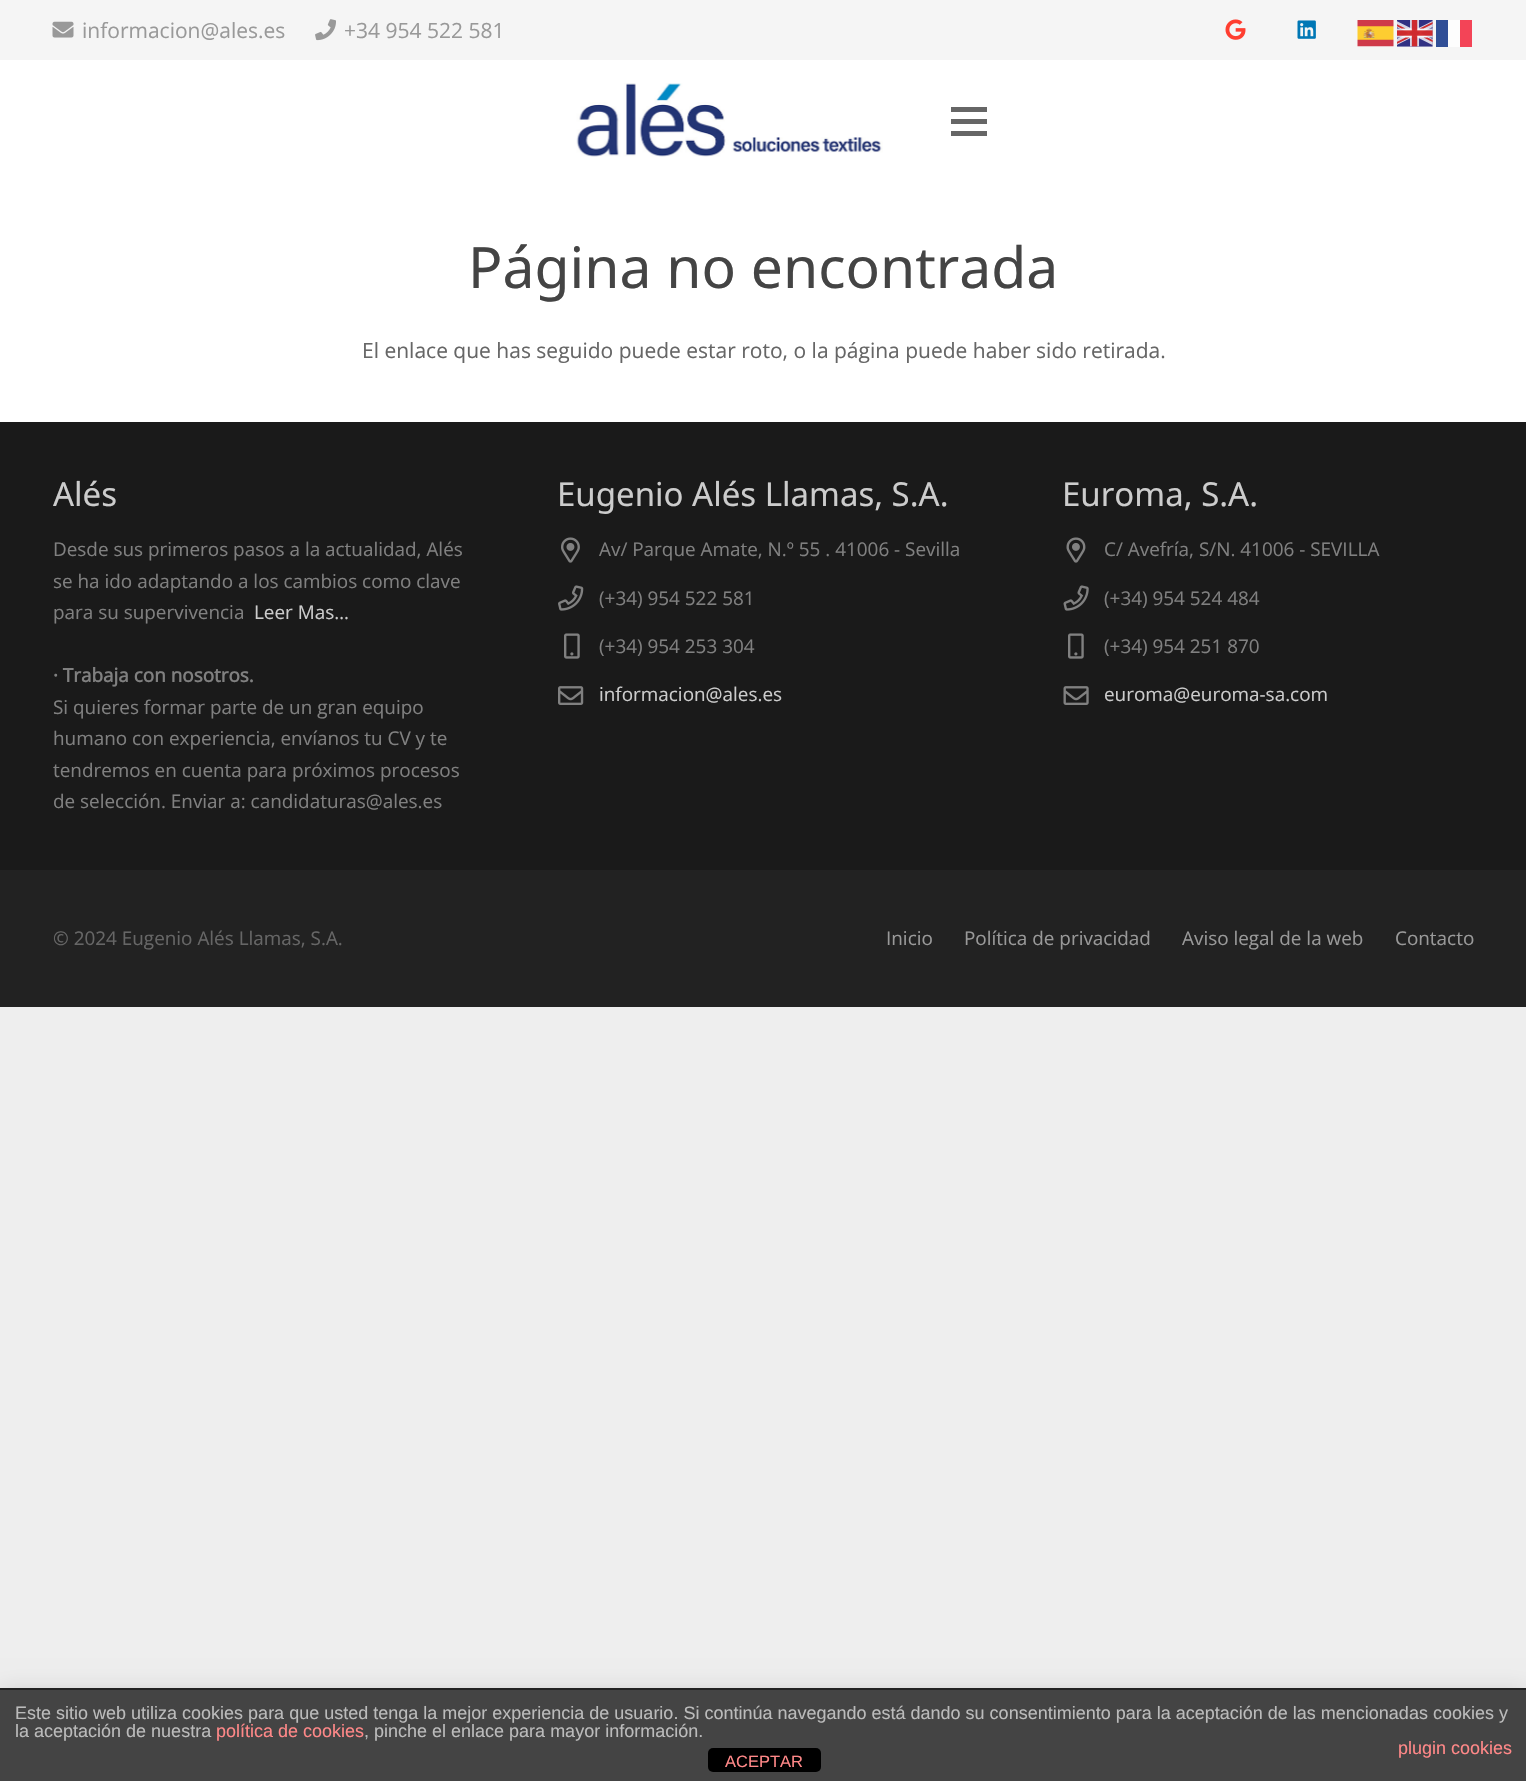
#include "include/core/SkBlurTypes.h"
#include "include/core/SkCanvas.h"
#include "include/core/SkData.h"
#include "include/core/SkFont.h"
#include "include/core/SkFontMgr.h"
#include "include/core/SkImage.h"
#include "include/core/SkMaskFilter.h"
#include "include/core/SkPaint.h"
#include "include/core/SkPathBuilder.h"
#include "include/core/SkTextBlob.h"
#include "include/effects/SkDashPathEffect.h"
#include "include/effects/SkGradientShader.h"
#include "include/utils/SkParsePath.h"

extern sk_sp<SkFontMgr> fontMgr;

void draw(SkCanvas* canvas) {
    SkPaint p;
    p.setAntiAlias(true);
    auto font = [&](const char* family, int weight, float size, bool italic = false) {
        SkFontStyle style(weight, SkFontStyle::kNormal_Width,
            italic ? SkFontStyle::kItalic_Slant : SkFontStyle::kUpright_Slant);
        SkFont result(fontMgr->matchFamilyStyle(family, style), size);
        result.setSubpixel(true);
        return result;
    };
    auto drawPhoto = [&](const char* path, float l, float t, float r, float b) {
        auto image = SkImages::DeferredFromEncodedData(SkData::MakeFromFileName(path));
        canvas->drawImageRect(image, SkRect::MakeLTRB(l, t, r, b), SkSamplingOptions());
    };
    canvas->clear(0xFFEEEEEE);
    p.setColor(0xFFFFFFFF);
    canvas->drawRect(SkRect::MakeLTRB(0, 60, 1526, 422), p);
    p.setColor(0xFFF5F5F5);
    canvas->drawRect(SkRect::MakeLTRB(0, 0, 1526, 60), p);
    drawPhoto("media/1.png", 52, 21, 74, 38);
    auto font1 = font("Open Sans", 400, 21);
    p.setColor(0xFF999999);
    canvas->drawString("informacion@ales.es", 82, 38, font1, p);
    drawPhoto("media/2.png", 315, 19, 336, 41);
    canvas->drawString("+34 954 522 581", 344, 38, font1, p);
    drawPhoto("media/3.png", 1225, 19, 1246, 40);
    drawPhoto("media/4.png", 1297, 20, 1316, 39);
    drawPhoto("media/5.png", 1357, 20, 1394, 47);
    drawPhoto("media/6.png", 1397, 20, 1433, 47);
    {
        const struct { float l, t, r, b; SkColor color; } items[] = {
            {1436, 20, 1448, 47, 0xFF314F97},
            {1448, 20, 1460, 47, 0xFFFDFDFD},
            {1460, 20, 1472, 47, 0xFFF34457},
        };
        for (auto [l, t, r, b, color] : items) {
            p.setColor(color);
            canvas->drawRect(SkRect::MakeLTRB(l, t, r, b), p);
        }
    }
    drawPhoto("media/7.png", 576, 83, 883, 157);
    {
        const struct { float l, t, r, b; SkColor color; } items[] = {
            {951, 119, 987, 124, 0xFF666666},
            {951, 107, 987, 112, 0xFF666666},
            {951, 131, 987, 136, 0xFF666666},
        };
        for (auto [l, t, r, b, color] : items) {
            p.setColor(color);
            canvas->drawRect(SkRect::MakeLTRB(l, t, r, b), p);
        }
    }
    auto font2 = font("Noto Sans", 400, 57);
    p.setColor(0xFF444444);
    canvas->drawString("Página no encontrada", 468, 288, font2, p);
    p.setColor(0xFF666666);
    canvas->drawString("El enlace que has seguido puede estar roto, o la página puede haber sido retirada.", 362, 358, font1, p);
    p.setColor(0xFF1A1A1A);
    canvas->drawRect(SkRect::MakeLTRB(0, 422, 1526, 870), p);
    auto font3 = font("Noto Sans", 400, 33);
    p.setColor(0xFFCCCCCC);
    canvas->drawString("Alés", 53, 506, font3, p);
    auto font4 = font("Open Sans", 400, 18.9f);
    p.setColor(0xFF808080);
    {
        const struct { const char* s; float x, y; } items[] = {
            {"Desde sus primeros pasos a la actualidad, Alés", 53, 556},
            {"se ha ido adaptando a los cambios como clave", 53, 588},
            {"para su supervivencia", 53, 619},
        };
        for (auto [s, x, y] : items) {
            canvas->drawString(s, x, y, font4, p);
        }
    }
    p.setColor(0xFFCCCCCC);
    canvas->drawString("Leer Mas…", 254, 619, font4, p);
    auto font5 = font("Open Sans", 700, 18.9f);
    p.setColor(0xFF808080);
    canvas->drawString("· Trabaja con nosotros.", 53, 682, font5, p);
    {
        const struct { const char* s; float x, y; } items[] = {
            {"Si quieres formar parte de un gran equipo", 53, 714},
            {"humano con experiencia, envíanos tu CV y te", 53, 745},
            {"tendremos en cuenta para próximos procesos", 53, 777},
            {"de selección. Enviar a: candidaturas@ales.es", 53, 808},
        };
        for (auto [s, x, y] : items) {
            canvas->drawString(s, x, y, font4, p);
        }
    }
    p.setColor(0xFFCCCCCC);
    canvas->drawString("Eugenio Alés Llamas, S.A.", 557, 506, font3, p);
    drawPhoto("media/8.png", 561, 537, 580, 563);
    p.setColor(0xFF808080);
    canvas->drawString("Av/ Parque Amate, N.º 55 . 41006 - Sevilla", 599, 556, font4, p);
    drawPhoto("media/9.png", 558, 585, 584, 611);
    canvas->drawString("(+34) 954 522 581", 599, 605, font4, p);
    drawPhoto("media/10.png", 564, 633, 580, 659);
    canvas->drawString("(+34) 954 253 304", 599, 653, font4, p);
    drawPhoto("media/11.png", 558, 686, 584, 705);
    p.setColor(0xFFCCCCCC);
    canvas->drawString("informacion@ales.es", 599, 701, font4, p);
    canvas->drawString("Euroma, S.A.", 1062, 506, font3, p);
    drawPhoto("media/12.png", 1066, 537, 1086, 563);
    p.setColor(0xFF808080);
    canvas->drawString("C/ Avefría, S/N. 41006 - SEVILLA", 1104, 556, font4, p);
    drawPhoto("media/13.png", 1063, 585, 1089, 611);
    canvas->drawString("(+34) 954 524 484", 1104, 605, font4, p);
    drawPhoto("media/10.png", 1068, 633, 1084, 659);
    canvas->drawString("(+34) 954 251 870", 1104, 653, font4, p);
    drawPhoto("media/14.png", 1063, 686, 1089, 705);
    p.setColor(0xFFCCCCCC);
    canvas->drawString("euroma@euroma-sa.com", 1104, 701, font4, p);
    p.setColor(0xFF222222);
    canvas->drawRect(SkRect::MakeLTRB(0, 870, 1526, 1007), p);
    p.setColor(0xFF666666);
    canvas->drawString("© 2024 Eugenio Alés Llamas, S.A.", 53, 945, font4, p);
    p.setColor(0xFF999999);
    {
        const struct { const char* s; float x, y; } items[] = {
            {"Inicio", 886, 945},
            {"Política de privacidad", 964, 945},
            {"Aviso legal de la web", 1182, 945},
            {"Contacto", 1395, 945},
        };
        for (auto [s, x, y] : items) {
            canvas->drawString(s, x, y, font4, p);
        }
    }
    p.setColor(0x26000000);
    p.setMaskFilter(SkMaskFilter::MakeBlur(kNormal_SkBlurStyle, 11));
    canvas->drawRect(SkRect::MakeLTRB(0, 1691, 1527, 1775), p);
    p.setMaskFilter(nullptr);
    p.setColor(0xFF444444);
    canvas->drawRect(SkRect::MakeLTRB(0, 1690, 1526, 1781), p);
    p.setColor(0xFF222222);
    canvas->drawRect(SkRect::MakeLTRB(0, 1688, 1526, 1690), p);
    auto font6 = font("Liberation Sans", 400, 18);
    p.setColor(0xFFBBBBBB);
    canvas->drawString("Este sitio web utiliza cookies para que usted tenga la mejor experiencia de usuario. Si continúa navegando está dando su consentimiento para la aceptación de las mencionadas cookies y", 15, 1719, font6, p);
    canvas->drawString("la aceptación de nuestra", 15, 1737, font6, p);
    p.setColor(0xFFFF8888);
    canvas->drawString("política de cookies", 216, 1737, font6, p);
    p.setColor(0xFFBBBBBB);
    canvas->drawString(", pinche el enlace para mayor información.", 364, 1737, font6, p);
    p.setColor(0xFFFF8888);
    canvas->drawString("plugin cookies", 1398, 1754, font6, p);
    p.setColor(0xFF000000);
    canvas->drawRoundRect(SkRect::MakeLTRB(708, 1748, 821, 1772), 5, 5, p);
    auto font7 = font("Liberation Sans", 400, 16.5f);
    p.setColor(0xFFFF8888);
    canvas->drawString("ACEPTAR", 725, 1767, font7, p);
}
